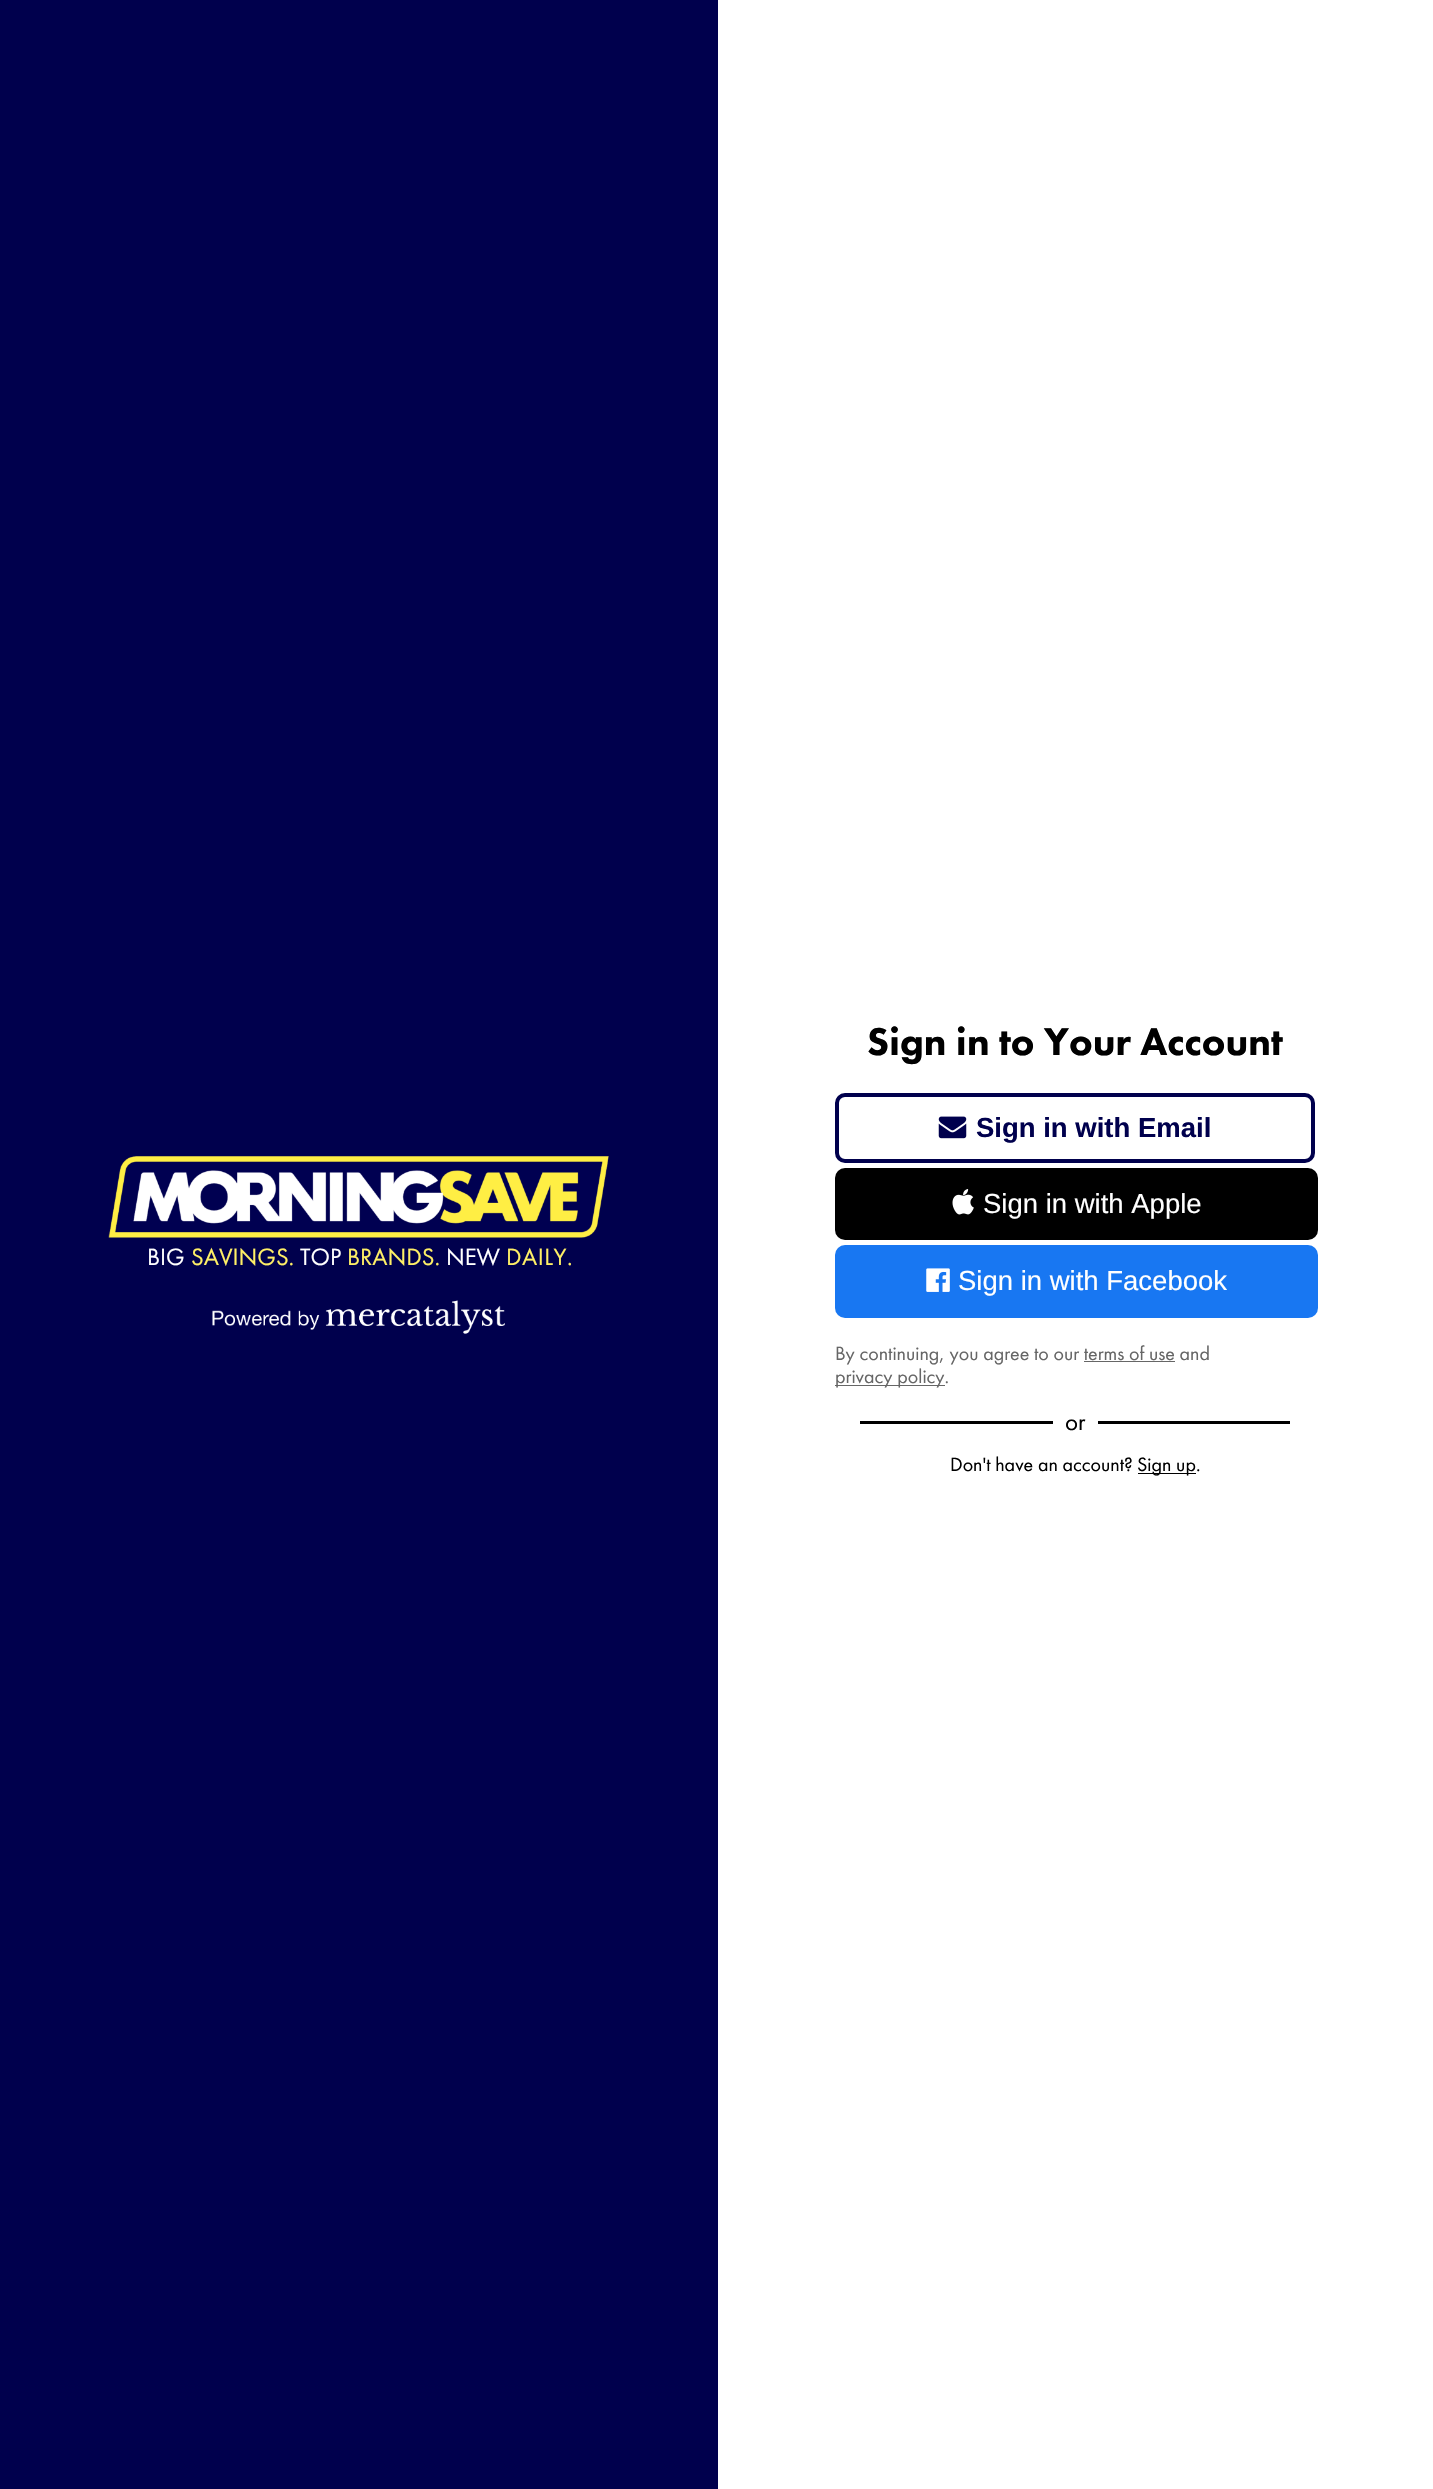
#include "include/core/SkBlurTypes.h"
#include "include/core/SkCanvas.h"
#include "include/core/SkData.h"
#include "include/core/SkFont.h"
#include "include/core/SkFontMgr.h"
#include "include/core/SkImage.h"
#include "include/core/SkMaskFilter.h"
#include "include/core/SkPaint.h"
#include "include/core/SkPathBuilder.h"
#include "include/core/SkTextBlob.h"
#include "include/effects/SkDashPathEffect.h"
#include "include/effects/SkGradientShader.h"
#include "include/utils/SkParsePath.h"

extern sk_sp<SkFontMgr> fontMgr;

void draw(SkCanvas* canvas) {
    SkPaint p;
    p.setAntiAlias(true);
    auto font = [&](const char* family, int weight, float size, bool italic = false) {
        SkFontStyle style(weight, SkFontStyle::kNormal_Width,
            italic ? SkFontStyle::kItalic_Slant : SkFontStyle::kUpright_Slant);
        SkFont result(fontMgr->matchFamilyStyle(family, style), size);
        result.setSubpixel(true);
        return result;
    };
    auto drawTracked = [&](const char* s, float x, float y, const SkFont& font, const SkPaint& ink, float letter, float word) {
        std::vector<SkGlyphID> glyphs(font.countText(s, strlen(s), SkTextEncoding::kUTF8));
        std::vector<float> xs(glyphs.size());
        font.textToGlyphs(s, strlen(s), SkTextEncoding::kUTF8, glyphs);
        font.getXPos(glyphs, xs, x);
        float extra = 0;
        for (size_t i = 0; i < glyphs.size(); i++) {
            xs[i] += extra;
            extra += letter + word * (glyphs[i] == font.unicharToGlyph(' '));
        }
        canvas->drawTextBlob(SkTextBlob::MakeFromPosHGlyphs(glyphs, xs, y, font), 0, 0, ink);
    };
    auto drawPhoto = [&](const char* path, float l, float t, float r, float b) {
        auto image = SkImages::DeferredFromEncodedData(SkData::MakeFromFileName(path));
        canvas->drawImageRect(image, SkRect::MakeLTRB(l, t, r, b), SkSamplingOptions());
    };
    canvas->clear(0xFFFFFFFF);
    p.setColor(0xFF00004D);
    canvas->drawRect(SkRect::MakeLTRB(0, 0, 718, 2489), p);
    drawPhoto("media/1.png", 108, 1156, 609, 1238);
    auto font1 = font("Futura PT", 400, 24.5f);
    p.setColor(0xFFFFFFFF);
    canvas->drawString("BIG", 147, 1265, font1, p);
    p.setColor(0xFFFFF066);
    canvas->drawString("SAVINGS.", 191, 1265, font1, p);
    p.setColor(0xFFFFFFFF);
    canvas->drawString("TOP", 300, 1265, font1, p);
    p.setColor(0xFFFFF066);
    canvas->drawString("BRANDS.", 347, 1265, font1, p);
    p.setColor(0xFFFFFFFF);
    canvas->drawString("NEW", 446, 1265, font1, p);
    p.setColor(0xFFFFF066);
    drawTracked("DAILY.", 506, 1265, font1, p, 0.5f, 0);
    drawPhoto("media/2.png", 212, 1300, 505, 1334);
    auto font2 = font("Futura PT", 900, 40);
    p.setColor(0xFF000000);
    canvas->drawString("Sign in to Your Account", 867, 1055, font2, p);
    p.setStyle(SkPaint::kStroke_Style);
    p.setStrokeWidth(4);
    p.setColor(0xFF00004D);
    canvas->drawRoundRect(SkRect::MakeLTRB(837, 1095, 1313, 1161), 8, 8, p);
    drawPhoto("media/3.png", 938, 1116, 967, 1139);
    auto font3 = font("Liberation Sans", 700, 27.5f);
    p.setStyle(SkPaint::kFill_Style);
    canvas->drawString("Sign in with Email", 976, 1137, font3, p);
    p.setColor(0xFF000000);
    canvas->drawRoundRect(SkRect::MakeLTRB(835, 1168, 1318, 1240), 10, 10, p);
    drawPhoto("media/4.png", 952, 1189, 974, 1215);
    auto font4 = font("Liberation Sans", 400, 27.5f);
    p.setColor(0xFFFFFFFF);
    canvas->drawString("Sign in with Apple", 983, 1213, font4, p);
    p.setColor(0xFF1877F2);
    canvas->drawRoundRect(SkRect::MakeLTRB(835, 1245, 1318, 1318), 10, 10, p);
    drawPhoto("media/5.png", 926, 1268, 950, 1292);
    p.setColor(0xFFFFFFFF);
    canvas->drawString("Sign in with Facebook", 958, 1290, font4, p);
    auto font5 = font("Futura PT", 400, 20);
    p.setColor(0xFF666666);
    canvas->drawString("By continuing, you agree to our terms of use and", 835, 1360, font5, p);
    canvas->drawRect(SkRect::MakeLTRB(1084, 1361, 1175, 1362), p);
    canvas->drawRect(SkRect::MakeLTRB(835, 1385, 945, 1386), p);
    canvas->drawString("privacy policy.", 835, 1383, font5, p);
    p.setColor(0xFF000000);
    canvas->drawRect(SkRect::MakeLTRB(860, 1421, 1053, 1424), p);
    auto font6 = font("Futura PT", 400, 25);
    canvas->drawString("or", 1065, 1430, font6, p);
    canvas->drawRect(SkRect::MakeLTRB(1098, 1421, 1290, 1424), p);
    canvas->drawString("Don't have an account?", 950, 1471, font5, p);
    canvas->drawRect(SkRect::MakeLTRB(1138, 1473, 1196, 1474), p);
    canvas->drawString("Sign up.", 1137, 1471, font5, p);
}
